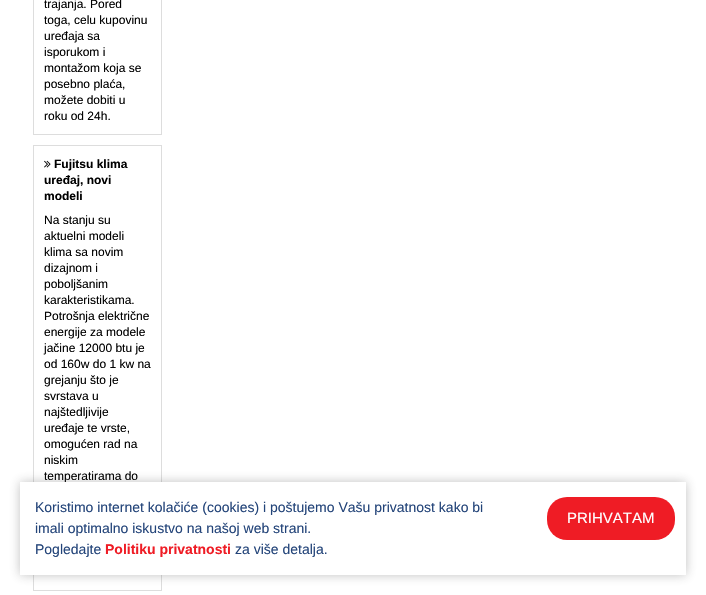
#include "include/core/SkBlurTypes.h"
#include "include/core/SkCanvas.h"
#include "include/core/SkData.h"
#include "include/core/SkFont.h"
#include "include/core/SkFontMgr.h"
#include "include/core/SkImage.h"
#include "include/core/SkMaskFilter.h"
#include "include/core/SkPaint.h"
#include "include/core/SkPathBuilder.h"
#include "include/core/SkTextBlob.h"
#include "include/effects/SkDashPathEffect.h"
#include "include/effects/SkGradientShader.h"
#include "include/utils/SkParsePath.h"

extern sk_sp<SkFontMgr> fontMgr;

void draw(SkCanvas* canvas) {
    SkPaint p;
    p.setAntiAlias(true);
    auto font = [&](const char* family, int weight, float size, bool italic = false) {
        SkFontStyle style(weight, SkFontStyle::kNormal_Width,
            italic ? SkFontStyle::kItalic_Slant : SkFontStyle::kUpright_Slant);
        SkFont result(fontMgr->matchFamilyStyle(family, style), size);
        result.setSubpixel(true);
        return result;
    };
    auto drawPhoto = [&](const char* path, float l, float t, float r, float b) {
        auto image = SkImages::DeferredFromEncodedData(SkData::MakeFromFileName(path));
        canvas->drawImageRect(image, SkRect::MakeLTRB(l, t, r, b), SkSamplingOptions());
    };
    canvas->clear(0xFFFFFFFF);
    p.setStyle(SkPaint::kStroke_Style);
    p.setStrokeWidth(1);
    p.setColor(0xFFDDDDDD);
    canvas->drawRect(SkRect::MakeLTRB(33.5f, -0.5f, 161.5f, 134.5f), p);
    auto font1 = font("Liberation Sans", 400, 12);
    p.setStyle(SkPaint::kFill_Style);
    p.setColor(0xFF000000);
    {
        const struct { const char* s; float x, y; } items[] = {
            {"trajanja. Pored", 44, 8},
            {"toga, celu kupovinu", 44, 24},
            {"uređaja sa", 44, 40},
            {"isporukom i", 44, 56},
            {"montažom koja se", 44, 72},
            {"posebno plaća,", 44, 88},
            {"možete dobiti u", 44, 104},
            {"roku od 24h.", 44, 120},
        };
        for (auto [s, x, y] : items) {
            canvas->drawString(s, x, y, font1, p);
        }
    }
    p.setStyle(SkPaint::kStroke_Style);
    p.setColor(0xFFDDDDDD);
    canvas->drawRect(SkRect::MakeLTRB(33.5f, 145.5f, 161.5f, 590.5f), p);
    drawPhoto("media/1.png", 44, 160, 51, 168);
    auto font2 = font("Liberation Sans", 700, 12);
    p.setStyle(SkPaint::kFill_Style);
    p.setColor(0xFF000000);
    {
        const struct { const char* s; float x, y; } items[] = {
            {"Fujitsu klima", 54, 168},
            {"uređaj, novi", 44, 184},
            {"modeli", 44, 200},
        };
        for (auto [s, x, y] : items) {
            canvas->drawString(s, x, y, font2, p);
        }
    }
    {
        const struct { const char* s; float x, y; } items[] = {
            {"Na stanju su", 44, 224},
            {"aktuelni modeli", 44, 240},
            {"klima sa novim", 44, 256},
            {"dizajnom i", 44, 272},
            {"poboljšanim", 44, 288},
            {"karakteristikama.", 44, 304},
            {"Potrošnja električne", 44, 320},
            {"energije za modele", 44, 336},
            {"jačine 12000 btu je", 44, 352},
            {"od 160w do 1 kw na", 44, 368},
            {"grejanju što je", 44, 384},
            {"svrstava u", 44, 400},
            {"najštedljivije", 44, 416},
            {"uređaje te vrste,", 44, 432},
            {"omogućen rad na", 44, 448},
            {"niskim", 44, 464},
            {"temperatirama do", 44, 480},
        };
        for (auto [s, x, y] : items) {
            canvas->drawString(s, x, y, font1, p);
        }
    }
    p.setColor(0x4D323232);
    p.setMaskFilter(SkMaskFilter::MakeBlur(kNormal_SkBlurStyle, 5));
    canvas->drawRect(SkRect::MakeLTRB(20, 482, 686, 575), p);
    p.setMaskFilter(nullptr);
    p.setColor(0xFFFFFFFF);
    canvas->drawRect(SkRect::MakeLTRB(20, 482, 686, 575), p);
    auto font3 = font("Liberation Sans", 400, 14);
    p.setColor(0xFF234479);
    {
        const struct { const char* s; float x, y; } items[] = {
            {"Koristimo internet kolačiće (cookies) i poštujemo Vašu privatnost kako bi", 35, 512},
            {"imali optimalno iskustvo na našoj web strani.", 35, 533},
            {"Pogledajte", 35, 554},
        };
        for (auto [s, x, y] : items) {
            canvas->drawString(s, x, y, font3, p);
        }
    }
    auto font4 = font("Liberation Sans", 700, 14);
    p.setColor(0xFFEF1C25);
    canvas->drawString("Politiku privatnosti", 105, 554, font4, p);
    p.setColor(0xFF234479);
    canvas->drawString("za više detalja.", 235, 554, font3, p);
    p.setColor(0xFFEF1C25);
    canvas->drawRoundRect(SkRect::MakeLTRB(547, 497, 675, 540), 20, 20, p);
    auto font5 = font("Liberation Sans", 400, 15);
    p.setColor(0xFFFFFFFF);
    canvas->drawString("PRIHVATAM", 567, 523, font5, p);
}
